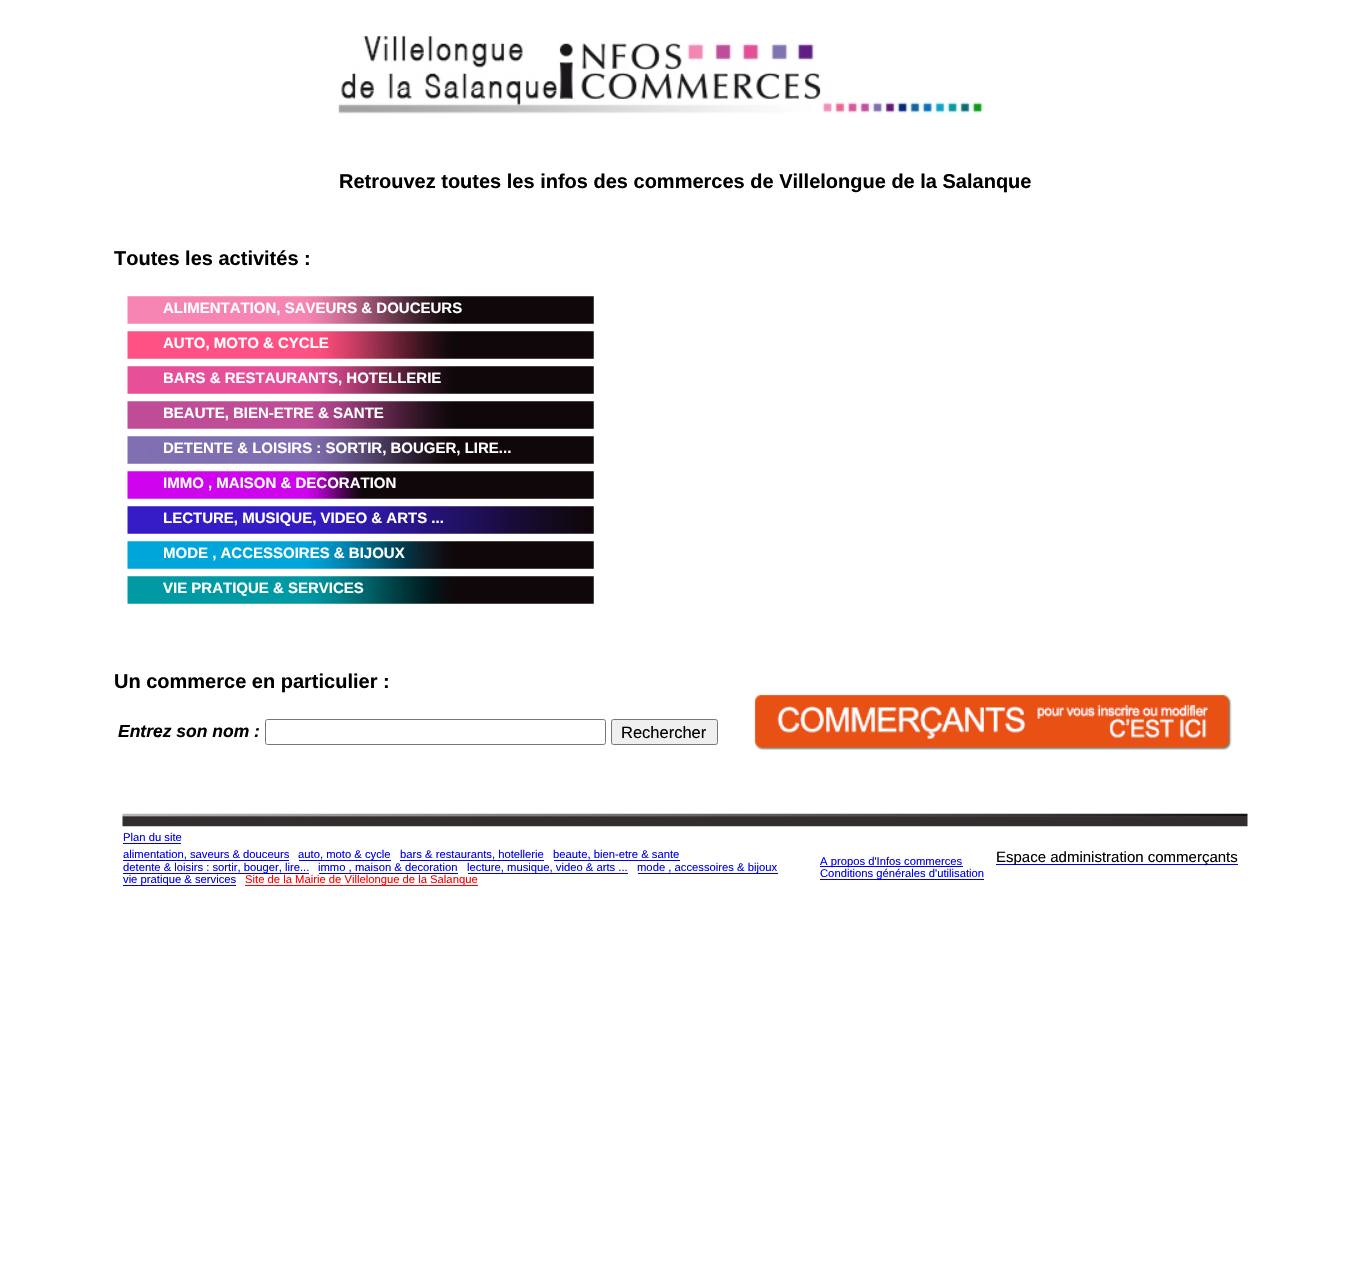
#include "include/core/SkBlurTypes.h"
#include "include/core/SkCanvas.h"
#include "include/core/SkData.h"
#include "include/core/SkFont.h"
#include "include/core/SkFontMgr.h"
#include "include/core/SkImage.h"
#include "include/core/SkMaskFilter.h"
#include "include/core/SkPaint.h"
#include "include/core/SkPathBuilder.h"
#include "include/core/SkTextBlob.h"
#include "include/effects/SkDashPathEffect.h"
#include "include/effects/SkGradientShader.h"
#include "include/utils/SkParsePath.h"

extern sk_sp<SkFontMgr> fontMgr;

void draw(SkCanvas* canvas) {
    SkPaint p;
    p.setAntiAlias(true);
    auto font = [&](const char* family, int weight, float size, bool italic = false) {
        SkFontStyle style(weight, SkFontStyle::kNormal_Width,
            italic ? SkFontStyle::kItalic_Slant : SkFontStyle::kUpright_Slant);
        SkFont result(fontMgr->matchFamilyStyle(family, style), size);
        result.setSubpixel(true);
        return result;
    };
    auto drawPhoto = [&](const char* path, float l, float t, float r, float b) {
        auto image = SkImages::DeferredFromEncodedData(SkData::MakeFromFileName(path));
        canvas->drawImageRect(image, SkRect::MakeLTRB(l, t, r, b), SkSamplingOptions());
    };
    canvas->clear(0xFFFFFFFF);
    drawPhoto("media/1.png", 338, 36, 984, 114);
    auto font1 = font("Liberation Sans", 700, 20);
    p.setColor(0xFF000000);
    canvas->drawString("Retrouvez toutes les infos des commerces de Villelongue de la Salanque", 339, 188, font1, p);
    canvas->drawString("Toutes les activités :", 114, 265, font1, p);
    drawPhoto("media/2.png", 127, 296, 594, 324);
    auto font2 = font("Liberation Sans", 700, 15);
    p.setColor(0xFFFFFFFF);
    canvas->drawString("ALIMENTATION, SAVEURS & DOUCEURS", 163, 313, font2, p);
    drawPhoto("media/3.png", 127, 331, 594, 359);
    canvas->drawString("AUTO, MOTO & CYCLE", 163, 348, font2, p);
    drawPhoto("media/4.png", 127, 366, 594, 394);
    canvas->drawString("BARS & RESTAURANTS, HOTELLERIE", 163, 383, font2, p);
    drawPhoto("media/5.png", 127, 401, 594, 429);
    canvas->drawString("BEAUTE, BIEN-ETRE & SANTE", 163, 418, font2, p);
    drawPhoto("media/6.png", 127, 436, 594, 464);
    canvas->drawString("DETENTE & LOISIRS : SORTIR, BOUGER, LIRE...", 163, 453, font2, p);
    drawPhoto("media/7.png", 127, 471, 594, 499);
    canvas->drawString("IMMO , MAISON & DECORATION", 163, 488, font2, p);
    drawPhoto("media/8.png", 127, 506, 594, 534);
    canvas->drawString("LECTURE, MUSIQUE, VIDEO & ARTS ...", 163, 523, font2, p);
    drawPhoto("media/9.png", 127, 541, 594, 569);
    canvas->drawString("MODE , ACCESSOIRES & BIJOUX", 163, 558, font2, p);
    drawPhoto("media/10.png", 127, 576, 594, 604);
    canvas->drawString("VIE PRATIQUE & SERVICES", 163, 593, font2, p);
    p.setColor(0xFF000000);
    canvas->drawString("Un commerce en particulier :", 114, 688, font1, p);
    auto font3 = font("Liberation Sans", 700, 17.5f, true);
    canvas->drawString("Entrez son nom :", 118, 737, font3, p);
    p.setStyle(SkPaint::kStroke_Style);
    p.setStrokeWidth(1);
    p.setColor(0xFF767676);
    canvas->drawRoundRect(SkRect::MakeLTRB(265.5f, 719.5f, 605.5f, 744.5f), 2, 2, p);
    p.setStyle(SkPaint::kFill_Style);
    p.setColor(0xFFEFEFEF);
    canvas->drawRoundRect(SkRect::MakeLTRB(611.5f, 719.5f, 717.5f, 744.5f), 2, 2, p);
    p.setStyle(SkPaint::kStroke_Style);
    p.setColor(0xFF767676);
    canvas->drawRoundRect(SkRect::MakeLTRB(611.5f, 719.5f, 717.5f, 744.5f), 2, 2, p);
    auto font4 = font("Liberation Sans", 400, 16.5f);
    p.setStyle(SkPaint::kFill_Style);
    p.setColor(0xFF000000);
    canvas->drawString("Rechercher", 621, 738, font4, p);
    drawPhoto("media/11.png", 754, 694, 1232, 751);
    drawPhoto("media/12.png", 122, 813, 1248, 827);
    auto font5 = font("Liberation Sans", 400, 11.25f);
    p.setColor(0xFF0000EE);
    canvas->drawString("Plan du site", 123, 841, font5, p);
    canvas->drawRect(SkRect::MakeLTRB(123, 843, 181, 844), p);
    canvas->drawString("alimentation, saveurs & douceurs", 123, 858, font5, p);
    canvas->drawRect(SkRect::MakeLTRB(123, 860, 289, 861), p);
    canvas->drawRect(SkRect::MakeLTRB(299, 860, 391, 861), p);
    canvas->drawString("auto, moto & cycle", 298, 858, font5, p);
    canvas->drawString("bars & restaurants, hotellerie", 400, 858, font5, p);
    canvas->drawRect(SkRect::MakeLTRB(400, 860, 544, 861), p);
    canvas->drawString("beaute, bien-etre & sante", 553, 858, font5, p);
    canvas->drawRect(SkRect::MakeLTRB(554, 860, 680, 861), p);
    canvas->drawRect(SkRect::MakeLTRB(123, 873, 309, 874), p);
    canvas->drawString("detente & loisirs : sortir, bouger, lire...", 123, 871, font5, p);
    canvas->drawString("immo , maison & decoration", 318, 871, font5, p);
    canvas->drawRect(SkRect::MakeLTRB(319, 873, 458, 874), p);
    canvas->drawRect(SkRect::MakeLTRB(468, 873, 628, 874), p);
    canvas->drawString("lecture, musique, video & arts ...", 467, 871, font5, p);
    canvas->drawRect(SkRect::MakeLTRB(638, 873, 778, 874), p);
    canvas->drawString("mode , accessoires & bijoux", 637, 871, font5, p);
    canvas->drawRect(SkRect::MakeLTRB(123, 885, 236, 886), p);
    canvas->drawString("vie pratique & services", 123, 883, font5, p);
    p.setColor(0xFFFF0000);
    canvas->drawRect(SkRect::MakeLTRB(245, 885, 478, 886), p);
    canvas->drawString("Site de la Mairie de Villelongue de la Salanque", 245, 883, font5, p);
    p.setColor(0xFF0000EE);
    canvas->drawRect(SkRect::MakeLTRB(820, 866, 963, 867), p);
    canvas->drawString("A propos d'Infos commerces", 820, 865, font5, p);
    canvas->drawRect(SkRect::MakeLTRB(820, 879, 984, 880), p);
    canvas->drawString("Conditions générales d'utilisation", 820, 877, font5, p);
    canvas->drawRect(SkRect::MakeLTRB(996, 864, 1238, 865), p);
    auto font6 = font("Liberation Sans", 400, 15);
    p.setColor(0xFF000000);
    canvas->drawString("Espace administration commerçants", 996, 862, font6, p);
}
